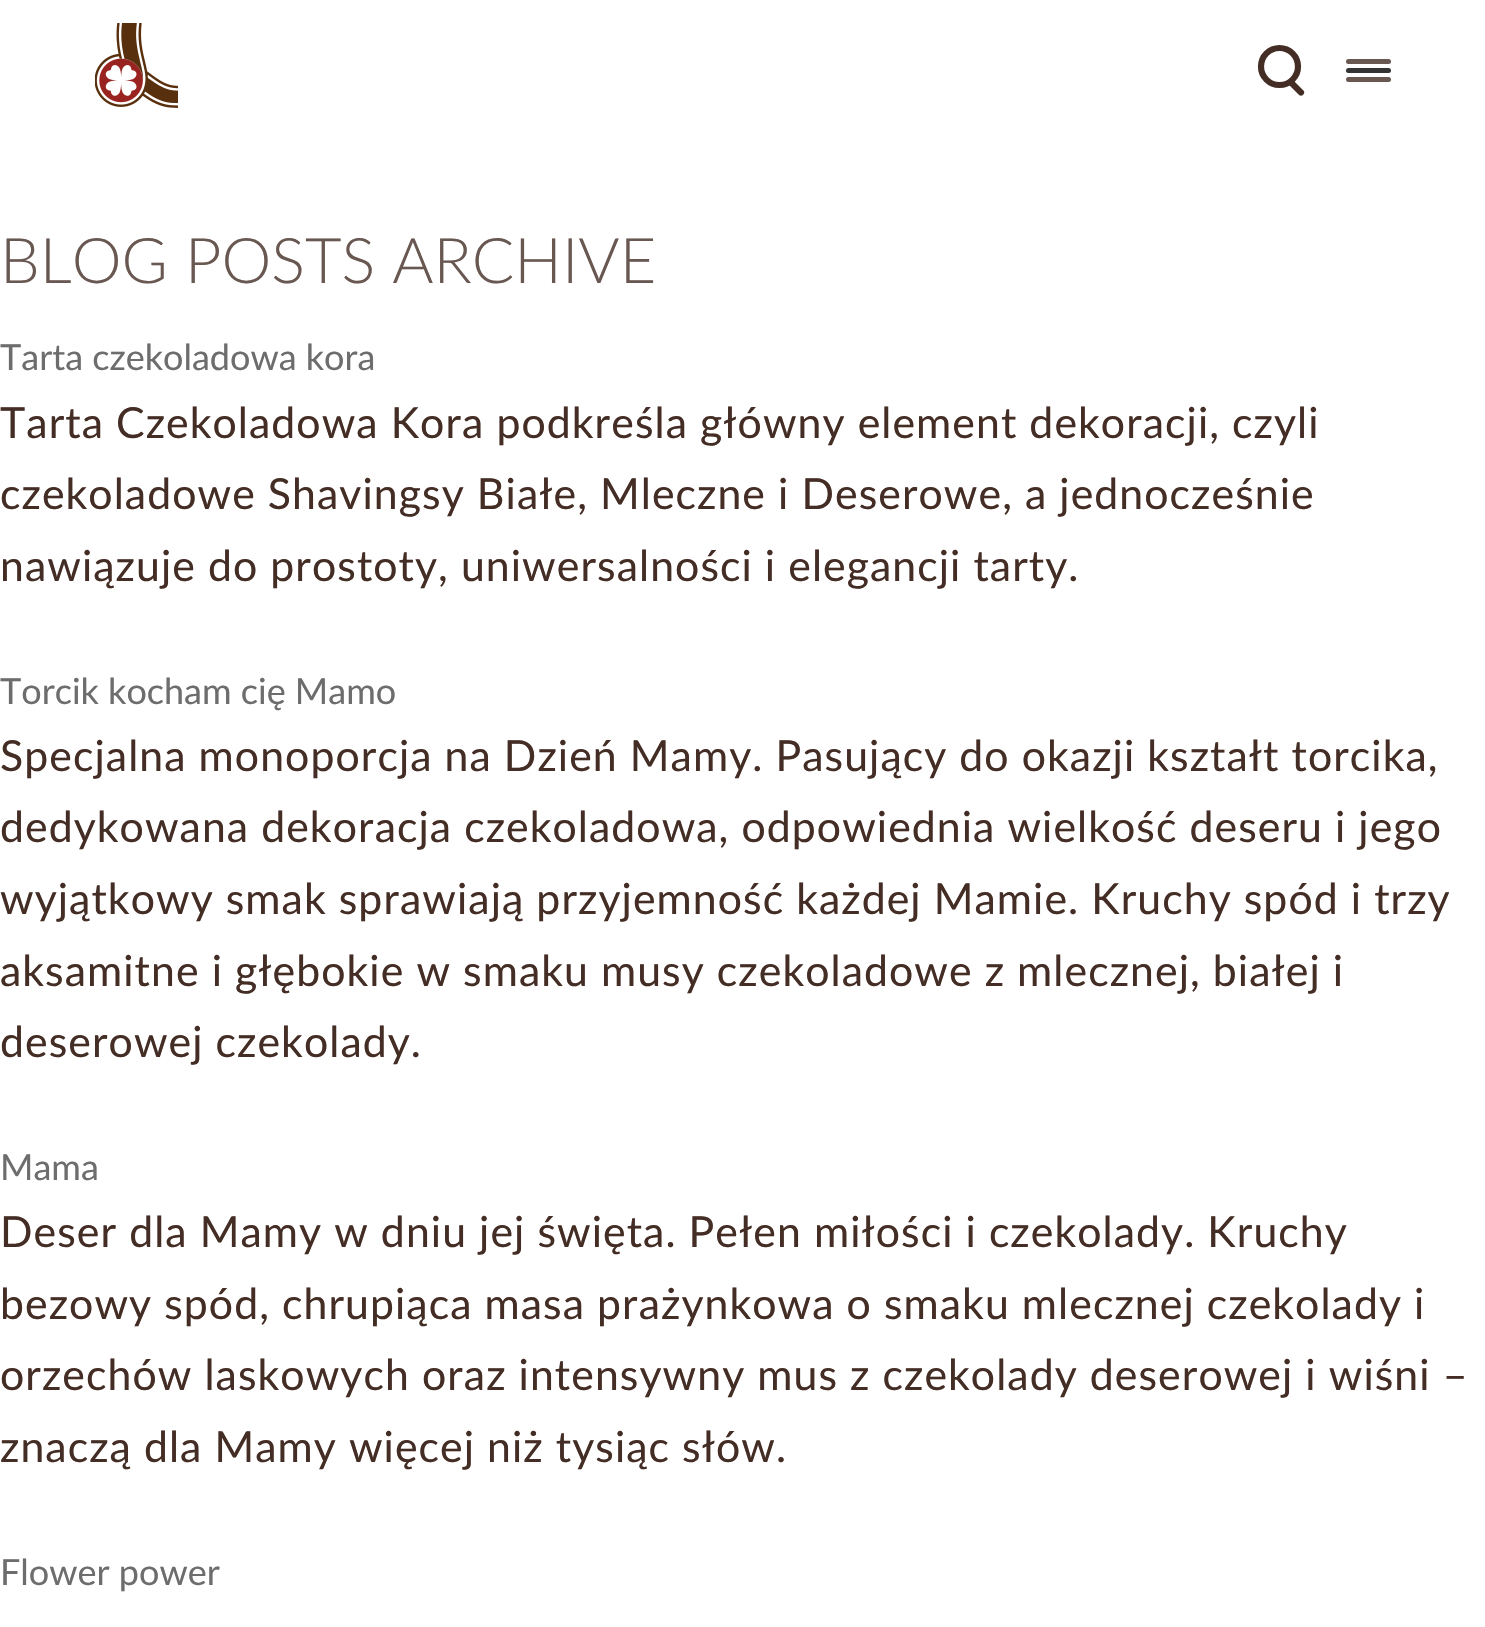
#include "include/core/SkBlurTypes.h"
#include "include/core/SkCanvas.h"
#include "include/core/SkData.h"
#include "include/core/SkFont.h"
#include "include/core/SkFontMgr.h"
#include "include/core/SkImage.h"
#include "include/core/SkMaskFilter.h"
#include "include/core/SkPaint.h"
#include "include/core/SkPathBuilder.h"
#include "include/core/SkTextBlob.h"
#include "include/effects/SkDashPathEffect.h"
#include "include/effects/SkGradientShader.h"
#include "include/utils/SkParsePath.h"

extern sk_sp<SkFontMgr> fontMgr;

void draw(SkCanvas* canvas) {
    SkPaint p;
    p.setAntiAlias(true);
    auto font = [&](const char* family, int weight, float size, bool italic = false) {
        SkFontStyle style(weight, SkFontStyle::kNormal_Width,
            italic ? SkFontStyle::kItalic_Slant : SkFontStyle::kUpright_Slant);
        SkFont result(fontMgr->matchFamilyStyle(family, style), size);
        result.setSubpixel(true);
        return result;
    };
    auto drawTracked = [&](const char* s, float x, float y, const SkFont& font, const SkPaint& ink, float letter, float word) {
        std::vector<SkGlyphID> glyphs(font.countText(s, strlen(s), SkTextEncoding::kUTF8));
        std::vector<float> xs(glyphs.size());
        font.textToGlyphs(s, strlen(s), SkTextEncoding::kUTF8, glyphs);
        font.getXPos(glyphs, xs, x);
        float extra = 0;
        for (size_t i = 0; i < glyphs.size(); i++) {
            xs[i] += extra;
            extra += letter + word * (glyphs[i] == font.unicharToGlyph(' '));
        }
        canvas->drawTextBlob(SkTextBlob::MakeFromPosHGlyphs(glyphs, xs, y, font), 0, 0, ink);
    };
    auto drawPhoto = [&](const char* path, float l, float t, float r, float b) {
        auto image = SkImages::DeferredFromEncodedData(SkData::MakeFromFileName(path));
        canvas->drawImageRect(image, SkRect::MakeLTRB(l, t, r, b), SkSamplingOptions());
    };
    canvas->clear(0xFFFFFFFF);
    drawPhoto("media/1.png", 95, 23, 178, 108);
    p.setStyle(SkPaint::kStroke_Style);
    p.setStrokeWidth(6.2f);
    p.setColor(0xFF442D25);
    canvas->drawCircle(1279.5f, 66.5f, 18.5f, p);
    p.setStrokeCap(SkPaint::kRound_Cap);
    canvas->drawPath(SkPathBuilder().moveTo(1301, 92.5f).lineTo(1291, 82.5f).detach(), p);
    p.setStyle(SkPaint::kFill_Style);
    p.setColor(0xFF695751);
    canvas->drawRoundRect(SkRect::MakeLTRB(1346, 59, 1391, 64), 2.5f, 2.5f, p);
    p.setColor(0xFF333333);
    canvas->drawRoundRect(SkRect::MakeLTRB(1346, 68, 1391, 73), 2.5f, 2.5f, p);
    p.setColor(0xFF695751);
    canvas->drawRoundRect(SkRect::MakeLTRB(1346, 77, 1391, 82), 2.5f, 2.5f, p);
    auto font1 = font("Lato", 300, 63);
    canvas->drawString("BLOG POSTS ARCHIVE", 0, 283, font1, p);
    auto font2 = font("Lato", 400, 36);
    p.setColor(0xFF6D6D6D);
    canvas->drawString("Tarta czekoladowa kora", 0, 370, font2, p);
    auto font3 = font("Lato", 400, 42.75f);
    p.setColor(0xFF442D25);
    {
        const struct { const char* s; float x, y; } items[] = {
            {"Tarta Czekoladowa Kora podkreśla główny element dekoracji, czyli", 0, 438},
            {"czekoladowe Shavingsy Białe, Mleczne i Deserowe, a jednocześnie", 0, 509},
            {"nawiązuje do prostoty, uniwersalności i elegancji tarty.", 0, 581},
        };
        for (auto [s, x, y] : items) {
            drawTracked(s, x, y, font3, p, 1.08f, 0);
        }
    }
    p.setColor(0xFF6D6D6D);
    canvas->drawString("Torcik kocham cię Mamo", 0, 704, font2, p);
    p.setColor(0xFF442D25);
    {
        const struct { const char* s; float x, y; } items[] = {
            {"Specjalna monoporcja na Dzień Mamy. Pasujący do okazji kształt torcika,", 0, 771},
            {"dedykowana dekoracja czekoladowa, odpowiednia wielkość deseru i jego", 0, 842},
            {"wyjątkowy smak sprawiają przyjemność każdej Mamie. Kruchy spód i trzy", 0, 914},
            {"aksamitne i głębokie w smaku musy czekoladowe z mlecznej, białej i", 0, 986},
            {"deserowej czekolady.", 0, 1057},
        };
        for (auto [s, x, y] : items) {
            drawTracked(s, x, y, font3, p, 1.08f, 0);
        }
    }
    p.setColor(0xFF6D6D6D);
    canvas->drawString("Mama", 0, 1180, font2, p);
    p.setColor(0xFF442D25);
    {
        const struct { const char* s; float x, y; } items[] = {
            {"Deser dla Mamy w dniu jej święta. Pełen miłości i czekolady. Kruchy", 0, 1247},
            {"bezowy spód, chrupiąca masa prażynkowa o smaku mlecznej czekolady i", 0, 1319},
            {"orzechów laskowych oraz intensywny mus z czekolady deserowej i wiśni –", 0, 1390},
            {"znaczą dla Mamy więcej niż tysiąc słów.", 0, 1462},
        };
        for (auto [s, x, y] : items) {
            drawTracked(s, x, y, font3, p, 1.08f, 0);
        }
    }
    p.setColor(0xFF6D6D6D);
    canvas->drawString("Flower power", 0, 1585, font2, p);
}
